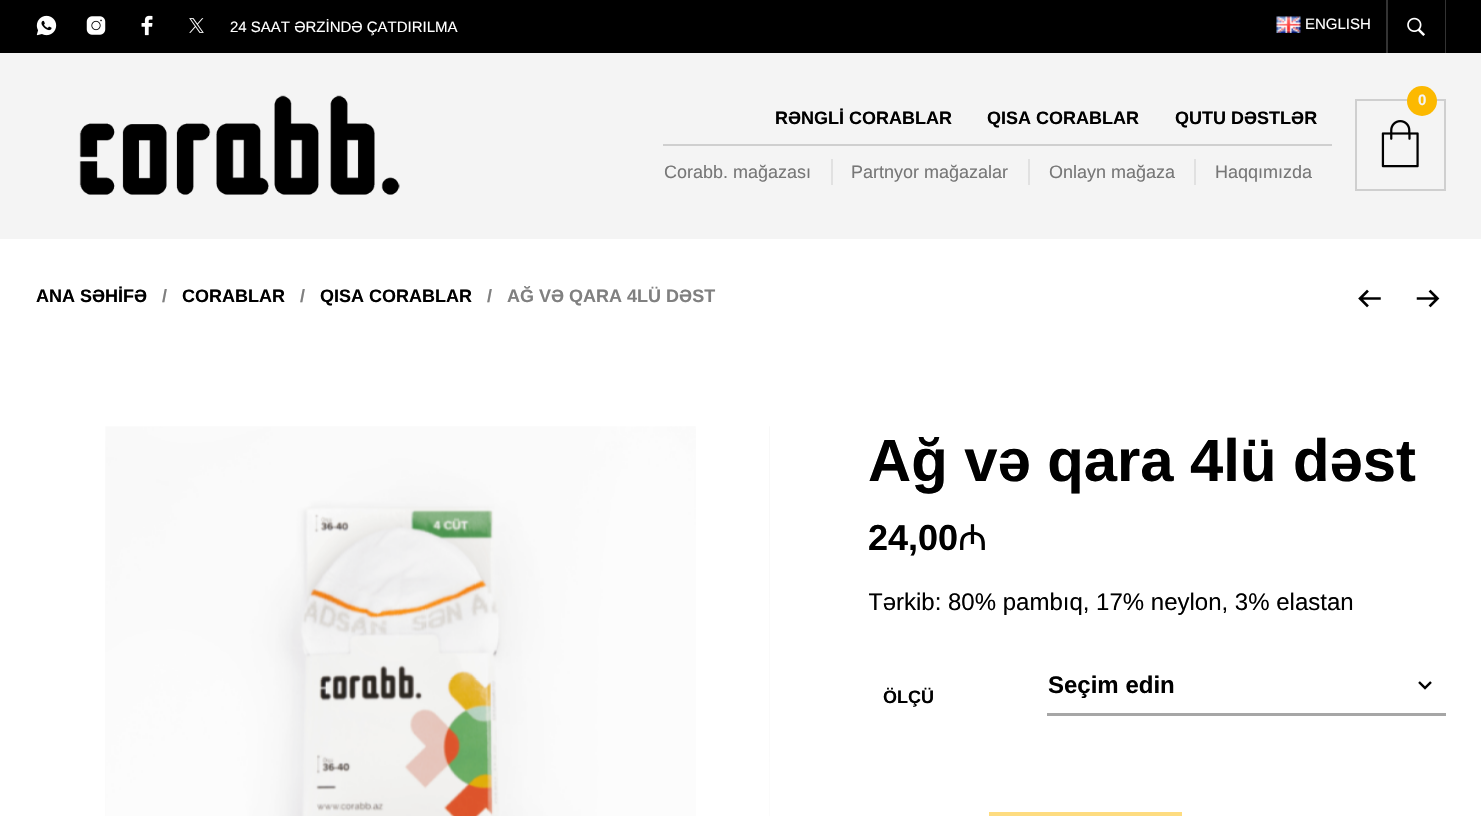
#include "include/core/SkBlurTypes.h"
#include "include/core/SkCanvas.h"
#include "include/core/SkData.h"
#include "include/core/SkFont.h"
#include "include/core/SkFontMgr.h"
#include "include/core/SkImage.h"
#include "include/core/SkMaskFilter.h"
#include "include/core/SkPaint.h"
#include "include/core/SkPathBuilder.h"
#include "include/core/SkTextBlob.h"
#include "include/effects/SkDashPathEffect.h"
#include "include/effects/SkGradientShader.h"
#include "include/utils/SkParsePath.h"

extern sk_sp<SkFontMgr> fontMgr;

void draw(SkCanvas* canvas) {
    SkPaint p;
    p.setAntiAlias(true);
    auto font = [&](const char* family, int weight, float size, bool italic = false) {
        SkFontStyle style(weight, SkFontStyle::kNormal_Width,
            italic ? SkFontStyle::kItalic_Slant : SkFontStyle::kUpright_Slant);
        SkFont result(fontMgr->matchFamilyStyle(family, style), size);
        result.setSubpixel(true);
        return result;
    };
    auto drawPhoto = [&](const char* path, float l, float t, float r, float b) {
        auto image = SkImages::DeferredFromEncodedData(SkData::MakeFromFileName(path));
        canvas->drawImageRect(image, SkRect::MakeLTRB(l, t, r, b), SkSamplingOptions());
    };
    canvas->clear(0xFFFFFFFF);
    p.setColor(0xFFF4F4F4);
    canvas->drawRect(SkRect::MakeLTRB(0, 53, 1481, 239), p);
    p.setColor(0xFF000000);
    canvas->drawRect(SkRect::MakeLTRB(0, 0, 1481, 53), p);
    drawPhoto("media/1.png", 36, 15, 57, 36);
    drawPhoto("media/2.png", 86, 16, 106, 35);
    drawPhoto("media/3.png", 141, 15, 153, 36);
    drawPhoto("media/4.png", 189, 18, 204, 33);
    auto font1 = font("Liberation Sans", 400, 15);
    p.setColor(0xFFFFFFFF);
    canvas->drawString("24 SAAT ƏRZİNDƏ ÇATDIRILMA", 230, 32, font1, p);
    drawPhoto("media/5.png", 1276, 16, 1301, 33);
    canvas->drawString("ENGLISH", 1305, 29, font1, p);
    p.setColor(0xFF333333);
    canvas->drawRect(SkRect::MakeLTRB(1445, 0, 1446, 53), p);
    canvas->drawRect(SkRect::MakeLTRB(1386, 0, 1388, 53), p);
    drawPhoto("media/6.png", 1407, 17, 1425, 36);
    drawPhoto("media/7.png", 79, 95, 400, 195);
    drawPhoto("media/8.png", 1381, 120, 1419, 168);
    p.setStyle(SkPaint::kStroke_Style);
    p.setStrokeWidth(2);
    p.setColor(0xFFCFCFCF);
    canvas->drawRect(SkRect::MakeLTRB(1356, 100, 1445, 190), p);
    p.setStyle(SkPaint::kFill_Style);
    p.setColor(0xFFFCB900);
    canvas->drawCircle(1422, 101, 15, p);
    auto font2 = font("Liberation Sans", 700, 15);
    p.setColor(0xFFF4F4F4);
    canvas->drawString("0", 1418, 105, font2, p);
    p.setColor(0xFFCFCFCF);
    canvas->drawRect(SkRect::MakeLTRB(663, 144, 1332, 146), p);
    auto font3 = font("Liberation Sans", 700, 18);
    p.setColor(0xFF000000);
    {
        const struct { const char* s; float x, y; } items[] = {
            {"RƏNGLİ CORABLAR", 775, 124},
            {"QISA CORABLAR", 987, 124},
            {"QUTU DƏSTLƏR", 1175, 124},
        };
        for (auto [s, x, y] : items) {
            canvas->drawString(s, x, y, font3, p);
        }
    }
    auto font4 = font("Liberation Sans", 400, 18);
    p.setColor(0xFF777777);
    canvas->drawString("Corabb. mağazası", 664, 178, font4, p);
    p.setColor(0xFFE1E1E1);
    canvas->drawRect(SkRect::MakeLTRB(831, 159, 833, 185), p);
    p.setColor(0xFF777777);
    canvas->drawString("Partnyor mağazalar", 851, 178, font4, p);
    p.setColor(0xFFE1E1E1);
    canvas->drawRect(SkRect::MakeLTRB(1028, 159, 1030, 185), p);
    p.setColor(0xFF777777);
    canvas->drawString("Onlayn mağaza", 1049, 178, font4, p);
    p.setColor(0xFFE1E1E1);
    canvas->drawRect(SkRect::MakeLTRB(1194, 159, 1196, 185), p);
    p.setColor(0xFF777777);
    canvas->drawString("Haqqımızda", 1215, 178, font4, p);
    p.setColor(0xFF000000);
    canvas->drawString("ANA SƏHİFƏ", 36, 302, font3, p);
    p.setColor(0xFF808080);
    canvas->drawString("/", 162, 302, font3, p);
    p.setColor(0xFF000000);
    canvas->drawString("CORABLAR", 182, 302, font3, p);
    p.setColor(0xFF808080);
    canvas->drawString("/", 300, 302, font3, p);
    p.setColor(0xFF000000);
    canvas->drawString("QISA CORABLAR", 320, 302, font3, p);
    p.setColor(0xFF808080);
    canvas->drawString("/   AĞ VƏ QARA 4LÜ DƏST", 487, 302, font3, p);
    drawPhoto("media/9.png", 1358, 289, 1381, 308);
    drawPhoto("media/10.png", 1416, 289, 1440, 308);
    drawPhoto("media/11.png", 105, 426, 696, 816);
    drawPhoto("media/12.png", 769, 426, 770, 816);
    auto font5 = font("Liberation Sans", 700, 59.75f);
    p.setColor(0xFF000000);
    canvas->drawString("Ağ və qara 4lü dəst", 868, 481, font5, p);
    auto font6 = font("Liberation Sans", 700, 36);
    canvas->drawString("24,00", 868, 550, font6, p);
    auto font7 = font("Noto Sans", 400, 36);
    canvas->drawString("₼", 958, 550, font7, p);
    canvas->save();
    canvas->clipRect(SkRect::MakeLTRB(869, 426, 1446, 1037));
    auto font8 = font("Liberation Sans", 400, 24);
    canvas->drawString("Tərkib: 80% pambıq, 17% neylon, 3% elastan", 868, 610, font8, p);
    canvas->restore();
    canvas->drawString("ÖLÇÜ", 883, 703, font3, p);
    drawPhoto("media/13.png", 1418, 681, 1432, 690);
    p.setColor(0xFFA6A6A6);
    canvas->drawRect(SkRect::MakeLTRB(1047, 713, 1446, 716), p);
    auto font9 = font("Liberation Sans", 700, 24);
    p.setColor(0xFF000000);
    canvas->drawString("Seçim edin", 1048, 693, font9, p);
    p.setColor(0xFFFEDC80);
    canvas->drawRect(SkRect::MakeLTRB(989, 812, 1182, 816), p);
}
